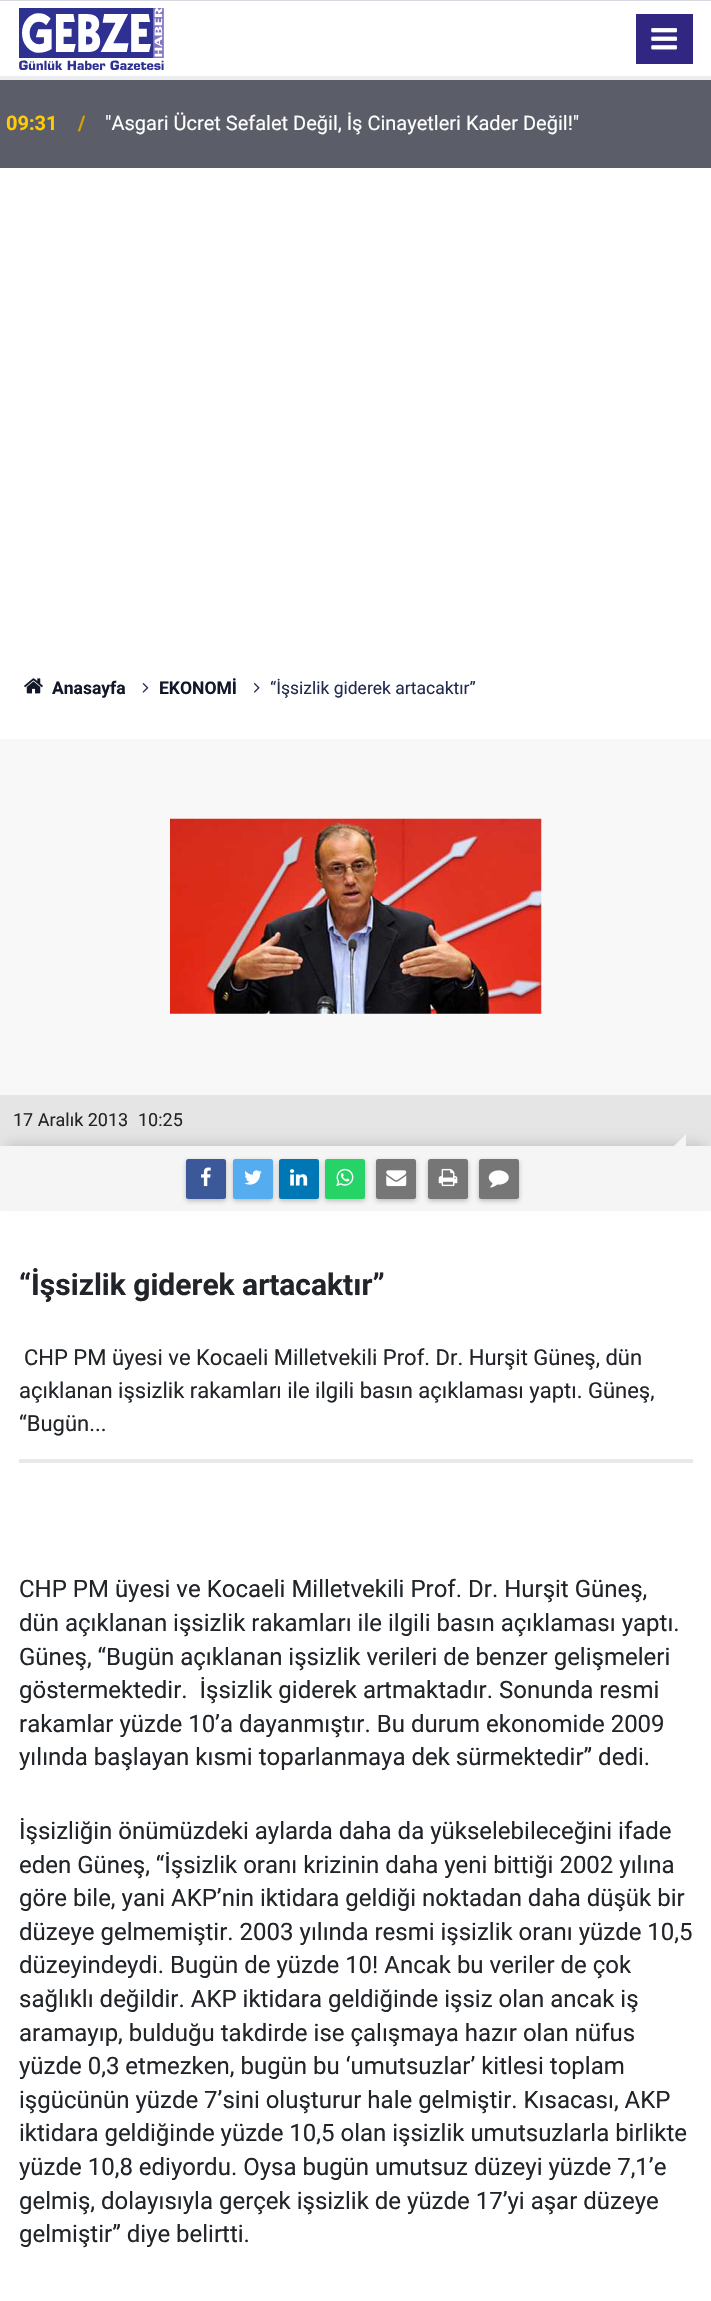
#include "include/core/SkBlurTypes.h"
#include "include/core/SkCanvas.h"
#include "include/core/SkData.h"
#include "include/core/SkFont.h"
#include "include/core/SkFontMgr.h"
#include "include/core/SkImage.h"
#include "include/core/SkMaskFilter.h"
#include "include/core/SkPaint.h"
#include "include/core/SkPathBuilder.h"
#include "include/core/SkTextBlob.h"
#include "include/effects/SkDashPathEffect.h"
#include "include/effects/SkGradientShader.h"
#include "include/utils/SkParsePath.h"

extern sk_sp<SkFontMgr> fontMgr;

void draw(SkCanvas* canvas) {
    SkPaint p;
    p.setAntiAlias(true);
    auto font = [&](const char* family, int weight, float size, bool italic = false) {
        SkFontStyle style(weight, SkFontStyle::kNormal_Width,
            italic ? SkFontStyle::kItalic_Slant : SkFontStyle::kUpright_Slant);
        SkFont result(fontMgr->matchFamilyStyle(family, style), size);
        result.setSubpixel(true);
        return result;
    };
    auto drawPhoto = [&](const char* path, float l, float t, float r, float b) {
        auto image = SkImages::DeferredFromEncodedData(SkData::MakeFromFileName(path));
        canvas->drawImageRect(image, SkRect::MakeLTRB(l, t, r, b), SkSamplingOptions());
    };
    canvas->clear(0xFFFFFFFF);
    p.setColor(0xFFD7DAE1);
    canvas->drawRect(SkRect::MakeLTRB(0, 0, 711, 1), p);
    p.setColor(0xFFECEDEE);
    canvas->drawRect(SkRect::MakeLTRB(0, 76, 711, 80), p);
    drawPhoto("media/1.png", 19, 8, 164, 70);
    p.setColor(0xFF312783);
    canvas->drawRect(SkRect::MakeLTRB(636, 14, 693, 64), p);
    drawPhoto("media/2.png", 651, 28, 677, 50);
    p.setColor(0xFF5B5E68);
    canvas->drawRect(SkRect::MakeLTRB(0, 80, 711, 168), p);
    auto font1 = font("Roboto", 700, 20);
    p.setColor(0xFFFFCB05);
    canvas->drawString("09:31", 6, 130, font1, p);
    p.setColor(0xFFD1A600);
    canvas->drawString("/", 78, 130, font1, p);
    auto font2 = font("Roboto", 400, 20);
    p.setColor(0xFFFFFFFF);
    canvas->drawString("\"Asgari Ücret Sefalet Değil, İş Cinayetleri Kader Değil!\"", 105, 130, font2, p);
    drawPhoto("media/3.png", 24, 678, 43, 694);
    auto font3 = font("Roboto", 700, 17.5f);
    p.setColor(0xFF12182A);
    canvas->drawString("Anasayfa", 52, 694, font3, p);
    drawPhoto("media/4.png", 142, 683, 149, 693);
    canvas->drawString("EKONOMİ", 159, 694, font3, p);
    drawPhoto("media/5.png", 253, 683, 260, 693);
    auto font4 = font("Roboto", 400, 17.5f);
    p.setColor(0xFF212C4E);
    canvas->drawString("“İşsizlik giderek artacaktır”", 270, 694, font4, p);
    p.setColor(0xFFF8F8F8);
    canvas->drawRect(SkRect::MakeLTRB(0, 739, 711, 1095), p);
    drawPhoto("media/6.png", 170, 818, 542, 1014);
    p.setColor(0xFFE5E5E5);
    canvas->drawRect(SkRect::MakeLTRB(0, 1095, 711, 1146), p);
    auto font5 = font("Roboto", 400, 18);
    p.setColor(0xFF212529);
    canvas->drawString("17 Aralık 2013", 13, 1126, font5, p);
    canvas->drawString("10:25", 138, 1126, font5, p);
    p.setColor(0x26000000);
    p.setMaskFilter(SkMaskFilter::MakeBlur(kNormal_SkBlurStyle, 6));
    canvas->drawRect(SkRect::MakeLTRB(6, 1144, 705, 1196), p);
    p.setMaskFilter(nullptr);
    p.setColor(0xFFF5F5F5);
    canvas->drawRect(SkRect::MakeLTRB(0, 1146, 711, 1211), p);
    canvas->drawPath(SkPathBuilder().moveTo(686, 1146).lineTo(674, 1146).lineTo(686, 1134).close().detach(), p);
    p.setColor(0x4D323232);
    p.setMaskFilter(SkMaskFilter::MakeBlur(kNormal_SkBlurStyle, 2.5f));
    canvas->drawRoundRect(SkRect::MakeLTRB(186, 1161, 226, 1201), 2.5f, 2.5f, p);
    p.setMaskFilter(nullptr);
    p.setColor(0xFF3B5999);
    canvas->drawRoundRect(SkRect::MakeLTRB(186, 1159, 226, 1199), 2.5f, 2.5f, p);
    drawPhoto("media/7.png", 201, 1167, 211, 1187);
    p.setColor(0x4D323232);
    p.setMaskFilter(SkMaskFilter::MakeBlur(kNormal_SkBlurStyle, 2.5f));
    canvas->drawRoundRect(SkRect::MakeLTRB(233, 1161, 273, 1201), 2.5f, 2.5f, p);
    p.setMaskFilter(nullptr);
    p.setColor(0xFF55ACEE);
    canvas->drawRoundRect(SkRect::MakeLTRB(233, 1159, 273, 1199), 2.5f, 2.5f, p);
    drawPhoto("media/8.png", 244, 1170, 262, 1185);
    p.setColor(0x4D323232);
    p.setMaskFilter(SkMaskFilter::MakeBlur(kNormal_SkBlurStyle, 2.5f));
    canvas->drawRoundRect(SkRect::MakeLTRB(279, 1161, 319, 1201), 2.5f, 2.5f, p);
    p.setMaskFilter(nullptr);
    p.setColor(0xFF0077B5);
    canvas->drawRoundRect(SkRect::MakeLTRB(279, 1159, 319, 1199), 2.5f, 2.5f, p);
    drawPhoto("media/9.png", 290, 1169, 308, 1186);
    p.setColor(0x4D323232);
    p.setMaskFilter(SkMaskFilter::MakeBlur(kNormal_SkBlurStyle, 2.5f));
    canvas->drawRoundRect(SkRect::MakeLTRB(325, 1161, 365, 1201), 2.5f, 2.5f, p);
    p.setMaskFilter(nullptr);
    p.setColor(0xFF25D366);
    canvas->drawRoundRect(SkRect::MakeLTRB(325, 1159, 365, 1199), 2.5f, 2.5f, p);
    drawPhoto("media/10.png", 336, 1168, 354, 1187);
    p.setColor(0x4D323232);
    p.setMaskFilter(SkMaskFilter::MakeBlur(kNormal_SkBlurStyle, 2.5f));
    canvas->drawRoundRect(SkRect::MakeLTRB(376, 1161, 416, 1201), 2.5f, 2.5f, p);
    p.setMaskFilter(nullptr);
    p.setColor(0xFF767676);
    canvas->drawRoundRect(SkRect::MakeLTRB(376, 1159, 416, 1199), 2.5f, 2.5f, p);
    drawPhoto("media/11.png", 386, 1170, 407, 1187);
    p.setColor(0x4D323232);
    p.setMaskFilter(SkMaskFilter::MakeBlur(kNormal_SkBlurStyle, 2.5f));
    canvas->drawRoundRect(SkRect::MakeLTRB(428, 1161, 468, 1201), 2.5f, 2.5f, p);
    p.setMaskFilter(nullptr);
    p.setColor(0xFF767676);
    canvas->drawRoundRect(SkRect::MakeLTRB(428, 1159, 468, 1199), 2.5f, 2.5f, p);
    drawPhoto("media/12.png", 438, 1168, 458, 1187);
    p.setColor(0x4D323232);
    p.setMaskFilter(SkMaskFilter::MakeBlur(kNormal_SkBlurStyle, 2.5f));
    canvas->drawRoundRect(SkRect::MakeLTRB(479, 1161, 519, 1201), 2.5f, 2.5f, p);
    p.setMaskFilter(nullptr);
    p.setColor(0xFF767676);
    canvas->drawRoundRect(SkRect::MakeLTRB(479, 1159, 519, 1199), 2.5f, 2.5f, p);
    drawPhoto("media/13.png", 488, 1170, 509, 1188);
    p.setColor(0xFFE9E9E9);
    canvas->drawRect(SkRect::MakeLTRB(19, 1459, 693, 1463), p);
    auto font6 = font("Roboto", 700, 30);
    p.setColor(0xFF212529);
    canvas->drawString("“İşsizlik giderek artacaktır”", 19, 1295, font6, p);
    auto font7 = font("Roboto", 400, 22);
    {
        const struct { const char* s; float x, y; } items[] = {
            {"CHP PM üyesi ve Kocaeli Milletvekili Prof. Dr. Hurşit Güneş, dün", 24, 1365},
            {"açıklanan işsizlik rakamları ile ilgili basın açıklaması yaptı. Güneş,", 19, 1398},
            {"“Bugün...", 19, 1431},
        };
        for (auto [s, x, y] : items) {
            canvas->drawString(s, x, y, font7, p);
        }
    }
    auto font8 = font("Roboto", 400, 24);
    {
        const struct { const char* s; float x, y; } items[] = {
            {"CHP PM üyesi ve Kocaeli Milletvekili Prof. Dr. Hurşit Güneş,", 19, 1597},
            {"dün açıklanan işsizlik rakamları ile ilgili basın açıklaması yaptı.", 19, 1631},
            {"Güneş, “Bugün açıklanan işsizlik verileri de benzer gelişmeleri", 19, 1665},
            {"göstermektedir.  İşsizlik giderek artmaktadır. Sonunda resmi", 19, 1698},
            {"rakamlar yüzde 10’a dayanmıştır. Bu durum ekonomide 2009", 19, 1732},
            {"yılında başlayan kısmi toparlanmaya dek sürmektedir” dedi.", 19, 1765},
            {"İşsizliğin önümüzdeki aylarda daha da yükselebileceğini ifade", 19, 1839},
            {"eden Güneş, “İşsizlik oranı krizinin daha yeni bittiği 2002 yılına", 19, 1873},
            {"göre bile, yani AKP’nin iktidara geldiği noktadan daha düşük bir", 19, 1906},
            {"düzeye gelmemiştir. 2003 yılında resmi işsizlik oranı yüzde 10,5", 19, 1940},
            {"düzeyindeydi. Bugün de yüzde 10! Ancak bu veriler de çok", 19, 1973},
            {"sağlıklı değildir. AKP iktidara geldiğinde işsiz olan ancak iş", 19, 2007},
            {"aramayıp, bulduğu takdirde ise çalışmaya hazır olan nüfus", 19, 2041},
            {"yüzde 0,3 etmezken, bugün bu ‘umutsuzlar’ kitlesi toplam", 19, 2074},
            {"işgücünün yüzde 7’sini oluşturur hale gelmiştir. Kısacası, AKP", 19, 2108},
            {"iktidara geldiğinde yüzde 10,5 olan işsizlik umutsuzlarla birlikte", 19, 2141},
            {"yüzde 10,8 ediyordu. Oysa bugün umutsuz düzeyi yüzde 7,1’e", 19, 2175},
            {"gelmiş, dolayısıyla gerçek işsizlik de yüzde 17’yi aşar düzeye", 19, 2209},
            {"gelmiştir” diye belirtti.", 19, 2242},
        };
        for (auto [s, x, y] : items) {
            canvas->drawString(s, x, y, font8, p);
        }
    }
}
